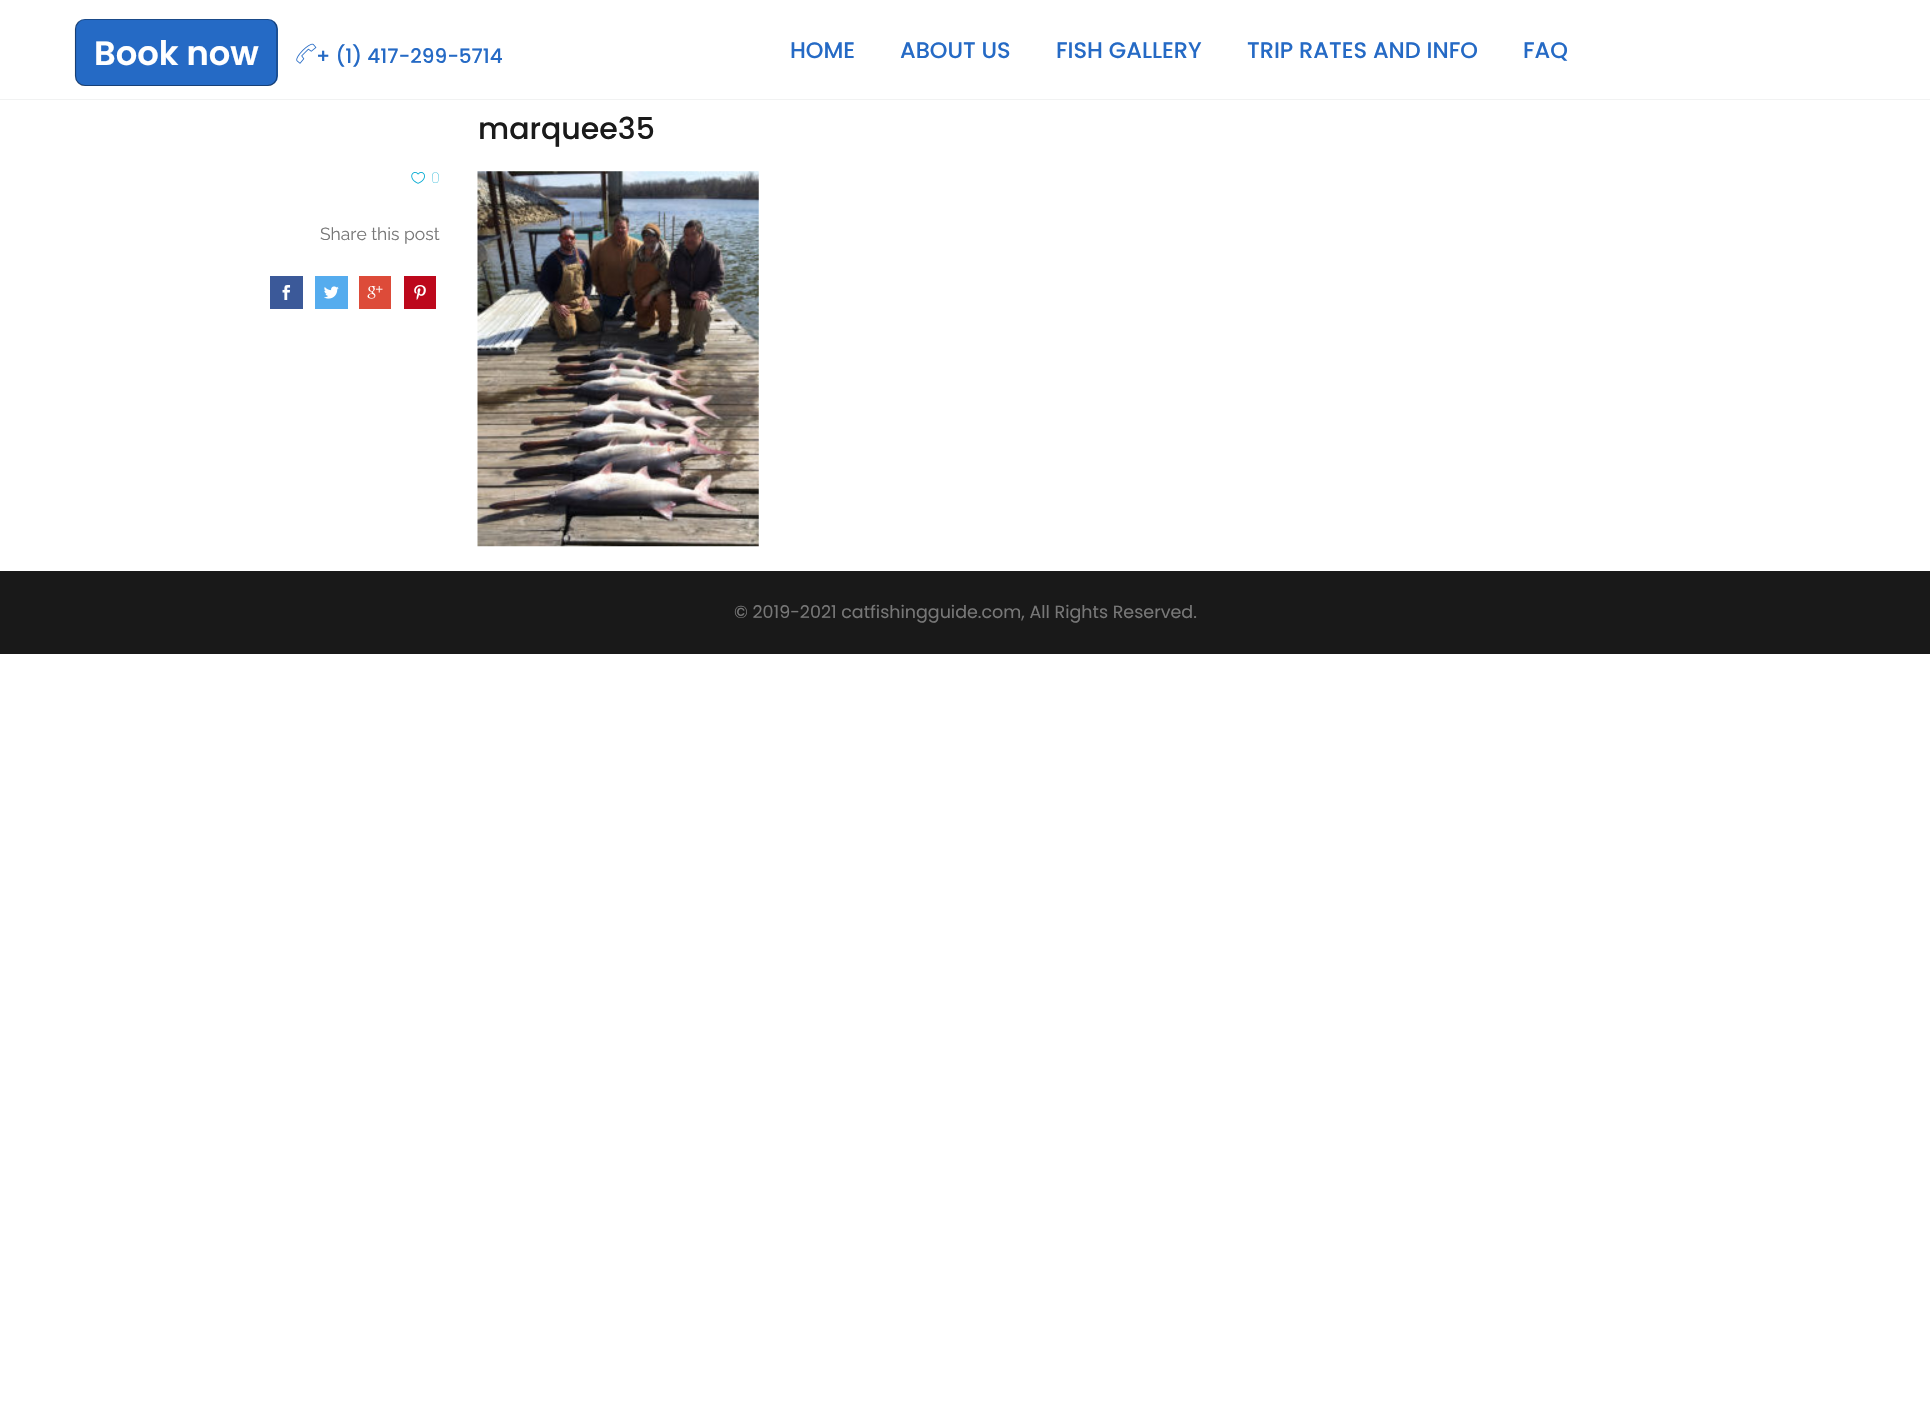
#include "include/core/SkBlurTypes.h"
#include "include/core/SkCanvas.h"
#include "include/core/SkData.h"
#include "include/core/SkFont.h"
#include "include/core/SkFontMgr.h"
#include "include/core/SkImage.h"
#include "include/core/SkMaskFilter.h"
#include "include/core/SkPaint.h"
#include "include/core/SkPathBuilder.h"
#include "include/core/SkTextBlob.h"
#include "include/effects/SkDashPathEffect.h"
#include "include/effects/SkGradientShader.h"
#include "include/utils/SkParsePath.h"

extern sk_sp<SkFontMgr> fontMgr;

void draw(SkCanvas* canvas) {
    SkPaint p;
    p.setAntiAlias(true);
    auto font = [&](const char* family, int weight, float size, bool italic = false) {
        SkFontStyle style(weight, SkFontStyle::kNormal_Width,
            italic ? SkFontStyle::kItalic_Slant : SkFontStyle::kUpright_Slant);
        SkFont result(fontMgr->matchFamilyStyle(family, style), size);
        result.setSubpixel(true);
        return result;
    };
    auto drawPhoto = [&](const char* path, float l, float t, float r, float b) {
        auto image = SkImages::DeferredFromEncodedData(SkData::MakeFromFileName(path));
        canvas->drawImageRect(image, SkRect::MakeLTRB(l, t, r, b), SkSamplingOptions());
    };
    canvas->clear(0xFFFFFFFF);
    p.setColor(0xFFF1F2F2);
    canvas->drawRect(SkRect::MakeLTRB(0, 99, 1930, 100), p);
    p.setColor(0xFF256AC5);
    canvas->drawRoundRect(SkRect::MakeLTRB(75, 19, 278, 86), 10, 10, p);
    p.setStyle(SkPaint::kStroke_Style);
    p.setStrokeWidth(1.2f);
    p.setColor(0x4D000000);
    canvas->drawPath(SkPathBuilder().moveTo(78.5f, 22).cubicTo(80, 20.5f, 82.5f, 19.5f, 85, 19.5f).lineTo(267.5f, 19.5f).cubicTo(270, 19.5f, 272.5f, 20.5f, 274, 22).detach(), p);
    p.setColor(0x66000000);
    canvas->drawPath(SkPathBuilder().moveTo(274, 22).cubicTo(276, 24, 277, 26.5f, 277, 28.5f).lineTo(277, 76).cubicTo(277, 78.5f, 276, 81, 274, 83).cubicTo(272.5f, 84.5f, 270, 85.5f, 267.5f, 85.5f).lineTo(85, 85.5f).cubicTo(82.5f, 85.5f, 80, 84.5f, 78.5f, 83).cubicTo(76.5f, 81, 75.5f, 78.5f, 75.5f, 76).lineTo(75.5f, 29).cubicTo(75.5f, 26.5f, 76.5f, 24, 78.5f, 22).detach(), p);
    auto font1 = font("Poppins", 600, 33.75f);
    p.setStyle(SkPaint::kFill_Style);
    p.setColor(0xFFFFFFFF);
    canvas->drawString("Book now", 94, 65, font1, p);
    drawPhoto("media/1.png", 296, 43, 317, 64);
    auto font2 = font("Poppins", 500, 20);
    p.setColor(0xFF256AC5);
    canvas->drawString("+ (1) 417-299-5714", 316, 63, font2, p);
    auto font3 = font("Poppins", 500, 22.5f);
    {
        const struct { const char* s; float x, y; } items[] = {
            {"HOME", 790, 58},
            {"ABOUT US", 900, 58},
            {"FISH GALLERY", 1056, 58},
            {"TRIP RATES AND INFO", 1247, 58},
            {"FAQ", 1523, 58},
        };
        for (auto [s, x, y] : items) {
            canvas->drawString(s, x, y, font3, p);
        }
    }
    auto font4 = font("Poppins", 500, 30);
    p.setColor(0xFF1A1A1A);
    canvas->drawString("marquee35", 478, 139, font4, p);
    drawPhoto("media/2.png", 411, 172, 425, 184);
    auto font5 = font("Poppins", 100, 15);
    p.setColor(0xFF00A9D1);
    canvas->drawString("0", 431, 183, font5, p);
    auto font6 = font("Raleway", 400, 17.5f);
    p.setColor(0xFF777777);
    canvas->drawString("Share this post", 320, 240, font6, p);
    p.setColor(0xFF3B5999);
    canvas->drawRect(SkRect::MakeLTRB(270, 276, 303, 309), p);
    drawPhoto("media/3.png", 282, 285, 291, 300);
    p.setColor(0xFF55ACEE);
    canvas->drawRect(SkRect::MakeLTRB(315, 276, 348, 309), p);
    drawPhoto("media/4.png", 324, 286, 339, 299);
    p.setColor(0xFFDD4B39);
    canvas->drawRect(SkRect::MakeLTRB(359, 276, 391, 309), p);
    drawPhoto("media/5.png", 367, 286, 383, 299);
    p.setColor(0xFFBD081C);
    canvas->drawRect(SkRect::MakeLTRB(404, 276, 436, 309), p);
    drawPhoto("media/6.png", 414, 285, 426, 300);
    drawPhoto("media/7.png", 477, 171, 759, 547);
    p.setColor(0xFF191919);
    canvas->drawRect(SkRect::MakeLTRB(0, 571, 1930, 654), p);
    auto font7 = font("Poppins", 400, 17.5f);
    p.setColor(0xFF777777);
    canvas->drawString("© 2019-2021 catfishingguide.com, All Rights Reserved.", 734, 618, font7, p);
}
